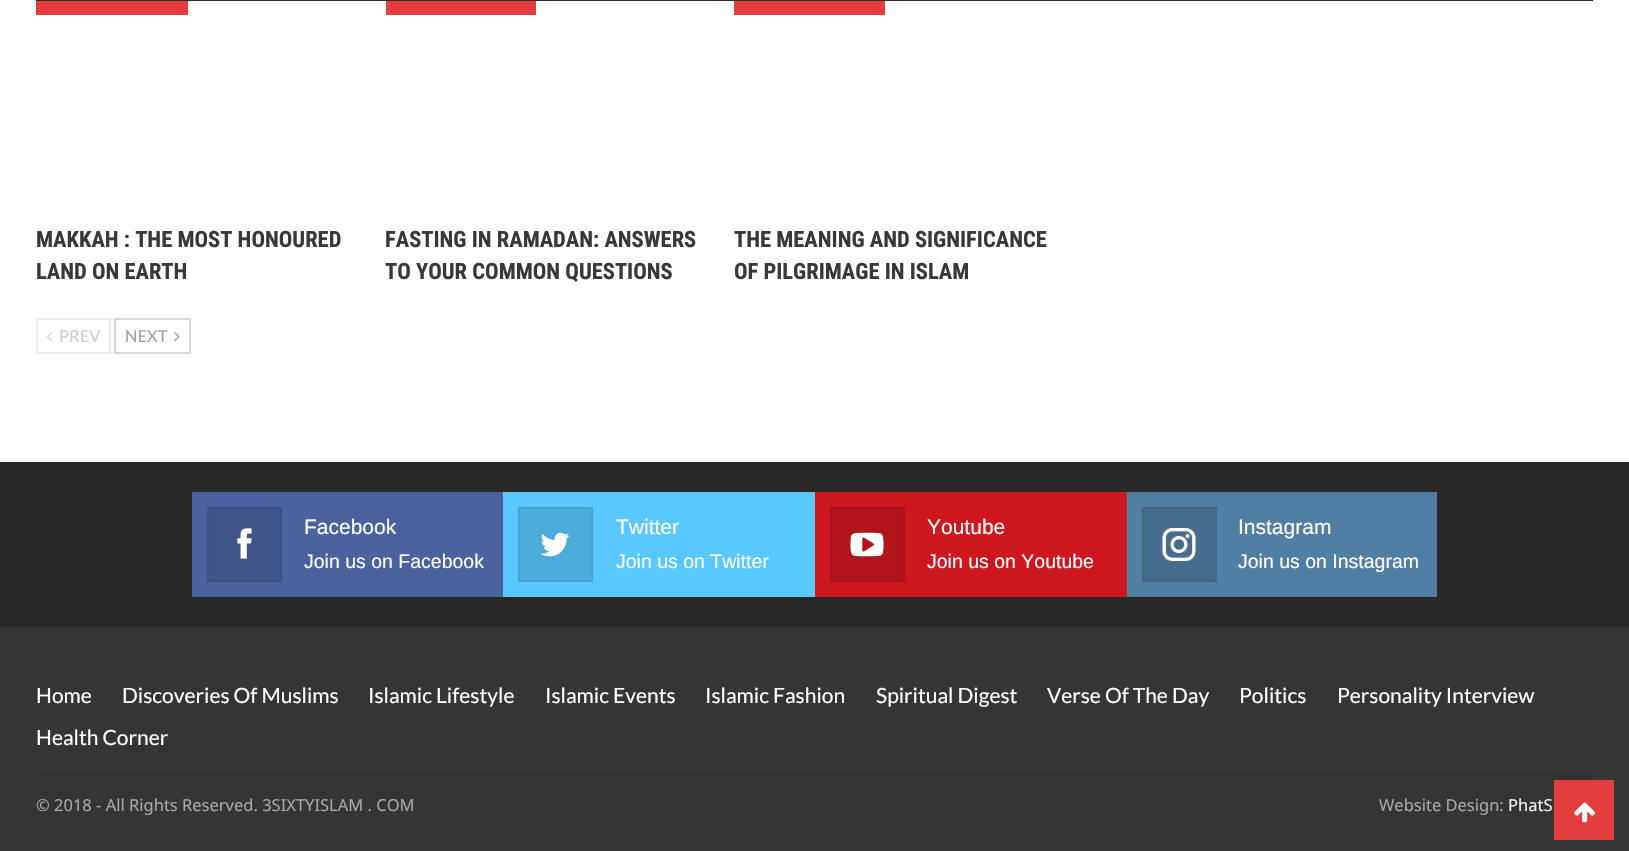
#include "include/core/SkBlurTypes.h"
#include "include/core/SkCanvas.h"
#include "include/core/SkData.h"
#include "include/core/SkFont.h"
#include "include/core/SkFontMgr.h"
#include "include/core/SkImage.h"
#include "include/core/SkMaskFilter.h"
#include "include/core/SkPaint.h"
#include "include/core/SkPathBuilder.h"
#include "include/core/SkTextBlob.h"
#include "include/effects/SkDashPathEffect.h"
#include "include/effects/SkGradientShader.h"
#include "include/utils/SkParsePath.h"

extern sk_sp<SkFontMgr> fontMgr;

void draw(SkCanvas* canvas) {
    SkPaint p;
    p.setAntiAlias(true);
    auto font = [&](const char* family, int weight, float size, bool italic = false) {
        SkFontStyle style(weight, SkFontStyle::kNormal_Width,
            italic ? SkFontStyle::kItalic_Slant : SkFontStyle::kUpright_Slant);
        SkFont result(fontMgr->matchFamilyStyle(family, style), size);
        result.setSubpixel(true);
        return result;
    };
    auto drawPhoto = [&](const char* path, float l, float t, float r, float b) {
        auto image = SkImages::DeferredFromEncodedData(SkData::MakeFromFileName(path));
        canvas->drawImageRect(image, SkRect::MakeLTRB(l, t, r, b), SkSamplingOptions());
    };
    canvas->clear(0xFFFFFFFF);
    p.setColor(0xFF292929);
    canvas->drawRect(SkRect::MakeLTRB(36, 0, 1593, 1), p);
    p.setColor(0xFFE33D3D);
    canvas->drawRect(SkRect::MakeLTRB(36, 1, 188, 15), p);
    auto font1 = font("Roboto Condensed", 700, 22.5f);
    p.setColor(0xFF383838);
    canvas->drawString("MAKKAH : THE MOST HONOURED", 36, 247, font1, p);
    canvas->drawString("LAND ON EARTH", 36, 279, font1, p);
    p.setColor(0xFFE33D3D);
    canvas->drawRect(SkRect::MakeLTRB(386, 1, 536, 15), p);
    p.setColor(0xFF383838);
    canvas->drawString("FASTING IN RAMADAN: ANSWERS", 385, 247, font1, p);
    canvas->drawString("TO YOUR COMMON QUESTIONS", 385, 279, font1, p);
    p.setColor(0xFFE33D3D);
    canvas->drawRect(SkRect::MakeLTRB(734, 1, 885, 15), p);
    p.setColor(0xFF383838);
    canvas->drawString("THE MEANING AND SIGNIFICANCE", 734, 247, font1, p);
    canvas->drawString("OF PILGRIMAGE IN ISLAM", 734, 279, font1, p);
    p.setStyle(SkPaint::kStroke_Style);
    p.setStrokeWidth(2);
    p.setColor(0xFFECECEC);
    canvas->drawRect(SkRect::MakeLTRB(37, 319, 110, 353), p);
    drawPhoto("media/1.png", 47, 332, 53, 342);
    auto font2 = font("Lato", 400, 16.5f);
    p.setStyle(SkPaint::kFill_Style);
    p.setColor(0xFFCFCFCF);
    canvas->drawString("PREV", 59, 342, font2, p);
    p.setStyle(SkPaint::kStroke_Style);
    p.setColor(0xFFD8D8D8);
    canvas->drawRect(SkRect::MakeLTRB(115, 319, 190, 353), p);
    p.setStyle(SkPaint::kFill_Style);
    p.setColor(0xFF9E9E9E);
    canvas->drawString("NEXT", 125, 342, font2, p);
    drawPhoto("media/2.png", 174, 332, 180, 342);
    p.setColor(0xFF292929);
    canvas->drawRect(SkRect::MakeLTRB(0, 462, 1629, 627), p);
    p.setColor(0xFF4A639F);
    canvas->drawRect(SkRect::MakeLTRB(192, 492, 503, 597), p);
    p.setColor(0xFF405589);
    canvas->drawRect(SkRect::MakeLTRB(208, 508, 281, 581), p);
    p.setStyle(SkPaint::kStroke_Style);
    p.setColor(0xFF3D5182);
    canvas->drawRect(SkRect::MakeLTRB(208, 508, 281, 581), p);
    drawPhoto("media/3.png", 237, 528, 252, 559);
    auto font3 = font("Liberation Sans", 400, 21);
    p.setStyle(SkPaint::kFill_Style);
    p.setColor(0xFFFFFFFF);
    canvas->drawString("Facebook", 304, 534, font3, p);
    auto font4 = font("Liberation Sans", 400, 19.5f);
    canvas->drawString("Join us on Facebook", 304, 568, font4, p);
    p.setColor(0xFF59C8FF);
    canvas->drawRect(SkRect::MakeLTRB(503, 492, 815, 597), p);
    p.setColor(0xFF4DACDB);
    canvas->drawRect(SkRect::MakeLTRB(519, 508, 592, 581), p);
    p.setStyle(SkPaint::kStroke_Style);
    p.setColor(0xFF49A3D0);
    canvas->drawRect(SkRect::MakeLTRB(519, 508, 592, 581), p);
    drawPhoto("media/4.png", 540, 532, 570, 557);
    p.setStyle(SkPaint::kFill_Style);
    p.setColor(0xFFFFFFFF);
    canvas->drawString("Twitter", 616, 534, font3, p);
    canvas->drawString("Join us on Twitter", 616, 568, font4, p);
    p.setColor(0xFFCC181E);
    canvas->drawRect(SkRect::MakeLTRB(815, 492, 1127, 597), p);
    p.setColor(0xFFAF151A);
    canvas->drawRect(SkRect::MakeLTRB(831, 508, 904, 581), p);
    p.setStyle(SkPaint::kStroke_Style);
    p.setColor(0xFFA61419);
    canvas->drawRect(SkRect::MakeLTRB(831, 508, 904, 581), p);
    drawPhoto("media/5.png", 850, 532, 884, 557);
    p.setStyle(SkPaint::kFill_Style);
    p.setColor(0xFFFFFFFF);
    canvas->drawString("Youtube", 927, 534, font3, p);
    canvas->drawString("Join us on Youtube", 927, 568, font4, p);
    p.setColor(0xFF517FA4);
    canvas->drawRect(SkRect::MakeLTRB(1127, 492, 1437, 597), p);
    p.setColor(0xFF466D8D);
    canvas->drawRect(SkRect::MakeLTRB(1143, 508, 1216, 581), p);
    p.setStyle(SkPaint::kStroke_Style);
    p.setColor(0xFF436886);
    canvas->drawRect(SkRect::MakeLTRB(1143, 508, 1216, 581), p);
    drawPhoto("media/6.png", 1162, 528, 1196, 561);
    p.setStyle(SkPaint::kFill_Style);
    p.setColor(0xFFFFFFFF);
    canvas->drawString("Instagram", 1238, 534, font3, p);
    canvas->drawString("Join us on Instagram", 1238, 568, font4, p);
    p.setColor(0xFF353535);
    canvas->drawRect(SkRect::MakeLTRB(0, 627, 1629, 851), p);
    p.setColor(0xFF2F2F2F);
    canvas->drawRect(SkRect::MakeLTRB(36, 774, 1593, 777), p);
    auto font5 = font("Lato", 400, 21);
    p.setColor(0xFFFFFFFF);
    {
        const struct { const char* s; float x, y; } items[] = {
            {"Home", 36, 703},
            {"Discoveries Of Muslims", 122, 703},
            {"Islamic Lifestyle", 368, 703},
            {"Islamic Events", 545, 703},
            {"Islamic Fashion", 705, 703},
            {"Spiritual Digest", 876, 703},
            {"Verse Of The Day", 1047, 703},
            {"Politics", 1239, 703},
            {"Personality Interview", 1337, 703},
            {"Health Corner", 36, 745},
        };
        for (auto [s, x, y] : items) {
            canvas->drawString(s, x, y, font5, p);
        }
    }
    auto font6 = font("Noto Sans", 400, 16.5f);
    p.setColor(0xFFA8A8A8);
    canvas->drawString("© 2018 - All Rights Reserved. 3SIXTYISLAM . COM", 36, 811, font6, p);
    canvas->drawString("Website Design:", 1379, 811, font6, p);
    p.setColor(0xFFF3F3F3);
    canvas->drawString("PhatS", 1508, 811, font6, p);
    p.setColor(0xFFE33D3D);
    canvas->drawRect(SkRect::MakeLTRB(1554, 780, 1614, 840), p);
    drawPhoto("media/7.png", 1574, 802, 1595, 823);
}
